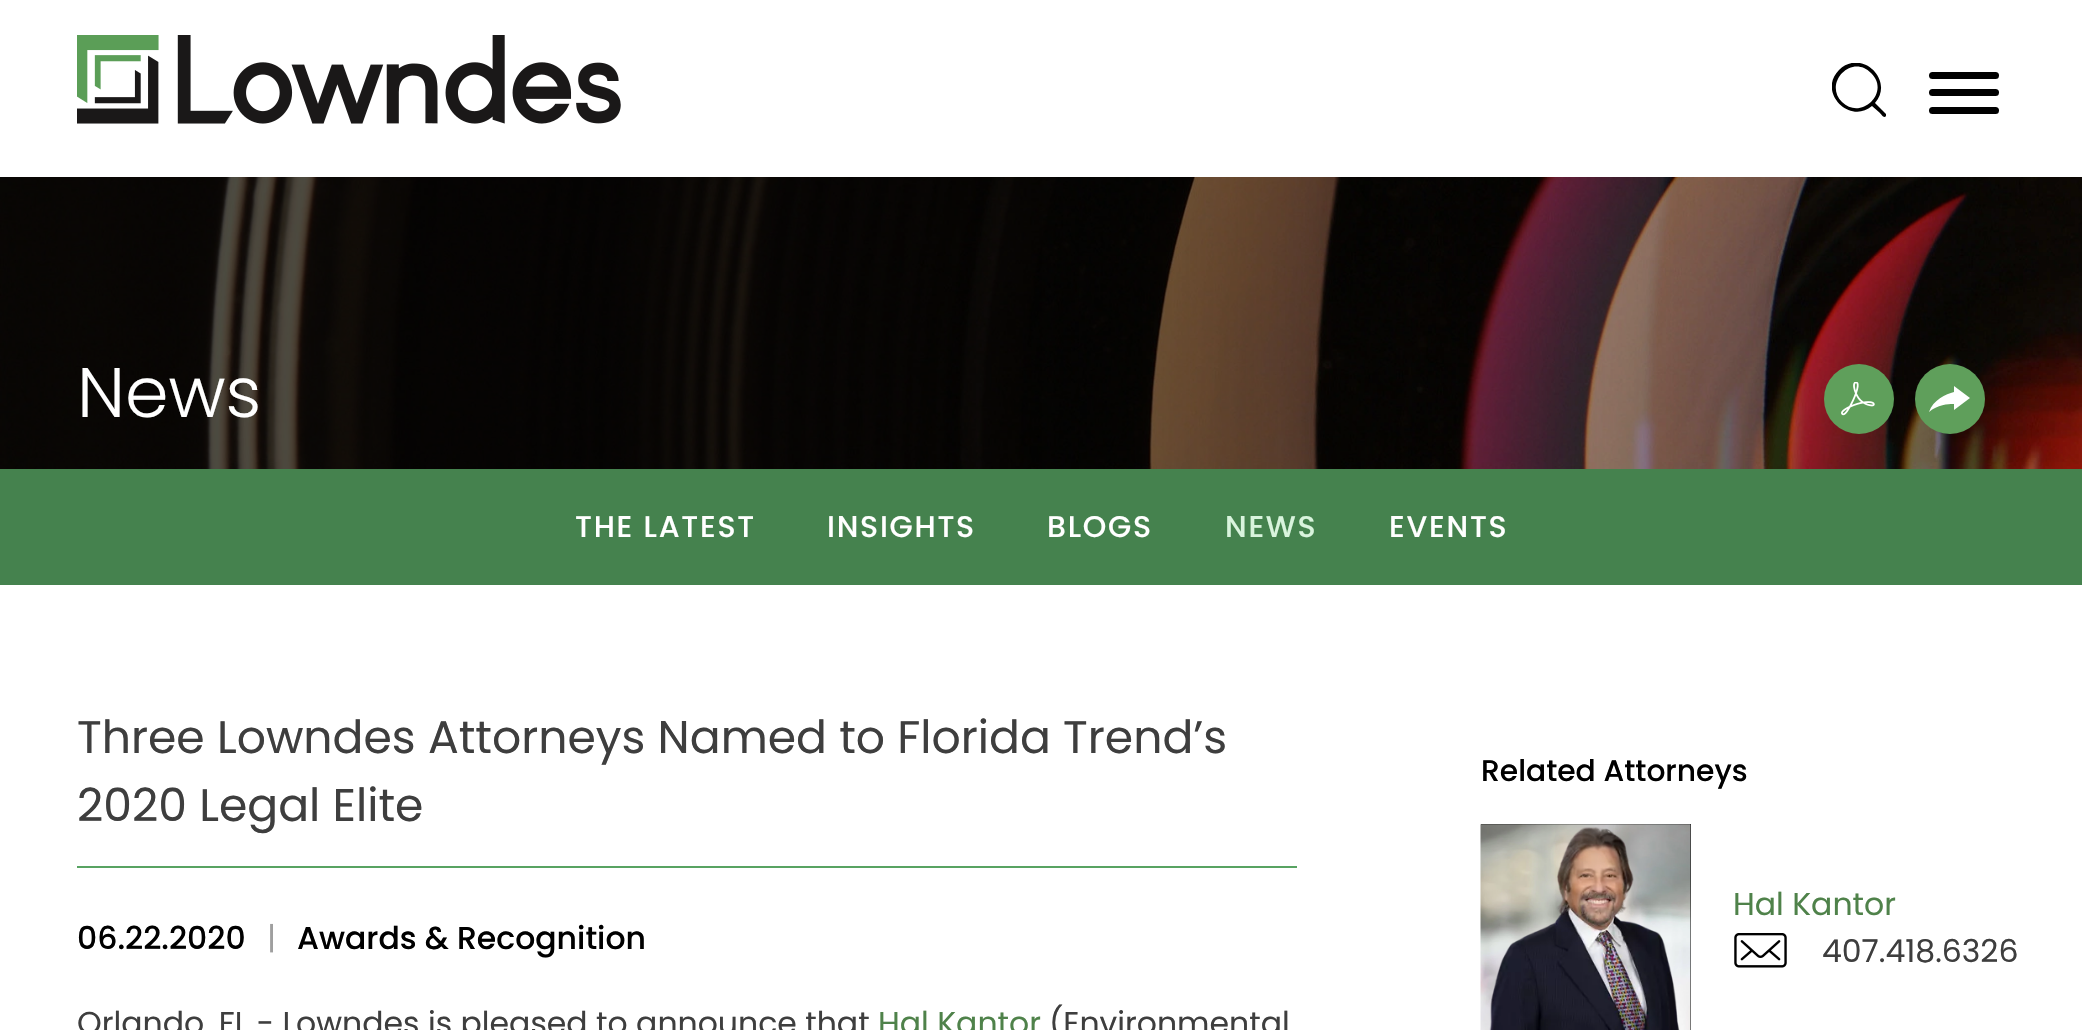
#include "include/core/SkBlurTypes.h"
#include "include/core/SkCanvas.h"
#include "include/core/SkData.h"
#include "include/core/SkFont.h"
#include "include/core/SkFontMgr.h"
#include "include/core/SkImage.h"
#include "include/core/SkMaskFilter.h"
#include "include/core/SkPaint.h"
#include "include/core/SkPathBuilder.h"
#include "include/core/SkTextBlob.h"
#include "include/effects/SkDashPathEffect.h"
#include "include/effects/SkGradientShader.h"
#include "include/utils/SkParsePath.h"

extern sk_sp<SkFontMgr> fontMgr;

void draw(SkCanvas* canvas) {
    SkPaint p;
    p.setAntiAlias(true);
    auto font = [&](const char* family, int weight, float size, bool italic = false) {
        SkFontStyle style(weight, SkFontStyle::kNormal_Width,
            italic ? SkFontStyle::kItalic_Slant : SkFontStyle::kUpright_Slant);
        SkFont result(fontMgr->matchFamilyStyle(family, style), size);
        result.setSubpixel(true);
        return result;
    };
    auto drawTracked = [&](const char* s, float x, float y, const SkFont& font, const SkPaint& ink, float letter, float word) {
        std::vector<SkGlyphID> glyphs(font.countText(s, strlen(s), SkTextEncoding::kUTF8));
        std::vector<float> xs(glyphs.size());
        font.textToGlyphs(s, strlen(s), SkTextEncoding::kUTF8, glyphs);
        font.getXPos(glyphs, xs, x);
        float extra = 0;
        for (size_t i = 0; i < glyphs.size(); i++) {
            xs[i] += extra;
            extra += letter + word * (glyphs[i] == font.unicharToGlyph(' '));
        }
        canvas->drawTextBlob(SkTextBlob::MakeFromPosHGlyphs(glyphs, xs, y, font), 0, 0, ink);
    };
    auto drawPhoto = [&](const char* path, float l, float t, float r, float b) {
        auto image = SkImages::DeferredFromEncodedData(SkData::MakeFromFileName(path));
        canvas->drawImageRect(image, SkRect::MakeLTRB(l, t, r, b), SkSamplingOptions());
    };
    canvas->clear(0xFFFFFFFF);
    drawPhoto("media/1.png", 77, 35, 621, 124);
    canvas->save();
    canvas->clipRect(SkRect::MakeLTRB(1832, 63, 1887, 117));
    p.setColor(0xFF000000);
    canvas->drawPath(SkPathBuilder().moveTo(1886, 114).lineTo(1875, 103).cubicTo(1895, 80, 1861, 48, 1839, 70).cubicTo(1817, 92, 1850, 125, 1872, 106).lineTo(1880, 113).cubicTo(1881, 114, 1884, 119, 1886, 116).close().moveTo(1842, 102).cubicTo(1823, 83, 1852, 53, 1871, 73).cubicTo(1891, 92, 1861, 121, 1842, 102).close().detach(), p);
    canvas->restore();
    canvas->drawRoundRect(SkRect::MakeLTRB(1929, 72, 1999, 79), 3.5f, 3.5f, p);
    canvas->drawRoundRect(SkRect::MakeLTRB(1929, 89, 1999, 96), 3.5f, 3.5f, p);
    canvas->drawRoundRect(SkRect::MakeLTRB(1929, 107, 1999, 114), 3.5f, 3.5f, p);
    drawPhoto("media/2.png", 0, 177, 2082, 469);
    auto font1 = font("Poppins", 300, 70);
    p.setColor(0xFFFFFFFF);
    canvas->drawString("News", 77, 417, font1, p);
    p.setColor(0xFF5F9F5B);
    canvas->drawCircle(1859, 399, 35, p);
    drawPhoto("media/3.png", 1841, 382, 1875, 416);
    canvas->drawCircle(1950, 399, 35, p);
    p.setColor(0xFFFFFFFF);
    canvas->drawPath(SkPathBuilder().moveTo(1954, 386).lineTo(1970, 398).lineTo(1954, 410).lineTo(1954, 404).cubicTo(1954, 404, 1939, 403, 1929, 412).cubicTo(1933, 400, 1946, 394, 1954, 392).close().detach(), p);
    p.setColor(0xFF45824E);
    canvas->drawRect(SkRect::MakeLTRB(0, 469, 2082, 585), p);
    auto font2 = font("Poppins", 500, 30);
    p.setColor(0xFFFFFFFF);
    {
        const struct { const char* s; float x, y; } items[] = {
            {"THE LATEST", 575, 537},
            {"INSIGHTS", 827, 537},
            {"BLOGS", 1047, 537},
        };
        for (auto [s, x, y] : items) {
            drawTracked(s, x, y, font2, p, 1.75f, 0);
        }
    }
    p.setColor(0xFFD9F4DD);
    drawTracked("NEWS", 1225, 537, font2, p, 1.75f, 0);
    p.setColor(0xFFFFFFFF);
    drawTracked("EVENTS", 1389, 537, font2, p, 1.75f, 0);
    p.setColor(0xFF58A362);
    canvas->drawRect(SkRect::MakeLTRB(77, 866, 1297, 868), p);
    auto font3 = font("Poppins", 400, 45.7f);
    p.setColor(0xFF3E3E3E);
    canvas->drawString("Three Lowndes Attorneys Named to Florida Trend’s", 77, 753, font3, p);
    canvas->drawString("2020 Legal Elite", 77, 821, font3, p);
    auto font4 = font("Poppins", 500, 31.5f);
    p.setColor(0xFF000000);
    canvas->drawString("06.22.2020", 77, 949, font4, p);
    auto font5 = font("Poppins", 400, 31.5f);
    p.setColor(0xFF9F9F9F);
    canvas->drawString("|", 267, 949, font5, p);
    p.setColor(0xFF000000);
    canvas->drawString("Awards & Recognition", 297, 949, font4, p);
    p.setColor(0xFF3E3E3E);
    canvas->drawString("Orlando, FL - Lowndes is pleased to announce that", 77, 1034, font5, p);
    p.setColor(0xFF4F824A);
    canvas->drawString("Hal Kantor", 878, 1034, font5, p);
    p.setColor(0xFF3E3E3E);
    canvas->drawString("(Environmental", 1049, 1034, font5, p);
    auto font6 = font("Poppins", 500, 29.75f);
    p.setColor(0xFF000000);
    canvas->drawString("Related Attorneys", 1481, 781, font6, p);
    canvas->drawRect(SkRect::MakeLTRB(1481, 824, 1691, 1030), p);
    drawPhoto("media/4.png", 1480, 824, 1691, 1030);
    drawPhoto("media/5.png", 1489, 827, 1680, 1030);
    p.setColor(0xFF4F824A);
    canvas->drawString("Hal Kantor", 1733, 915, font5, p);
    drawPhoto("media/6.png", 1734, 933, 1787, 968);
    p.setColor(0xFF3E3E3E);
    canvas->drawString("407.418.6326", 1822, 962, font5, p);
}
